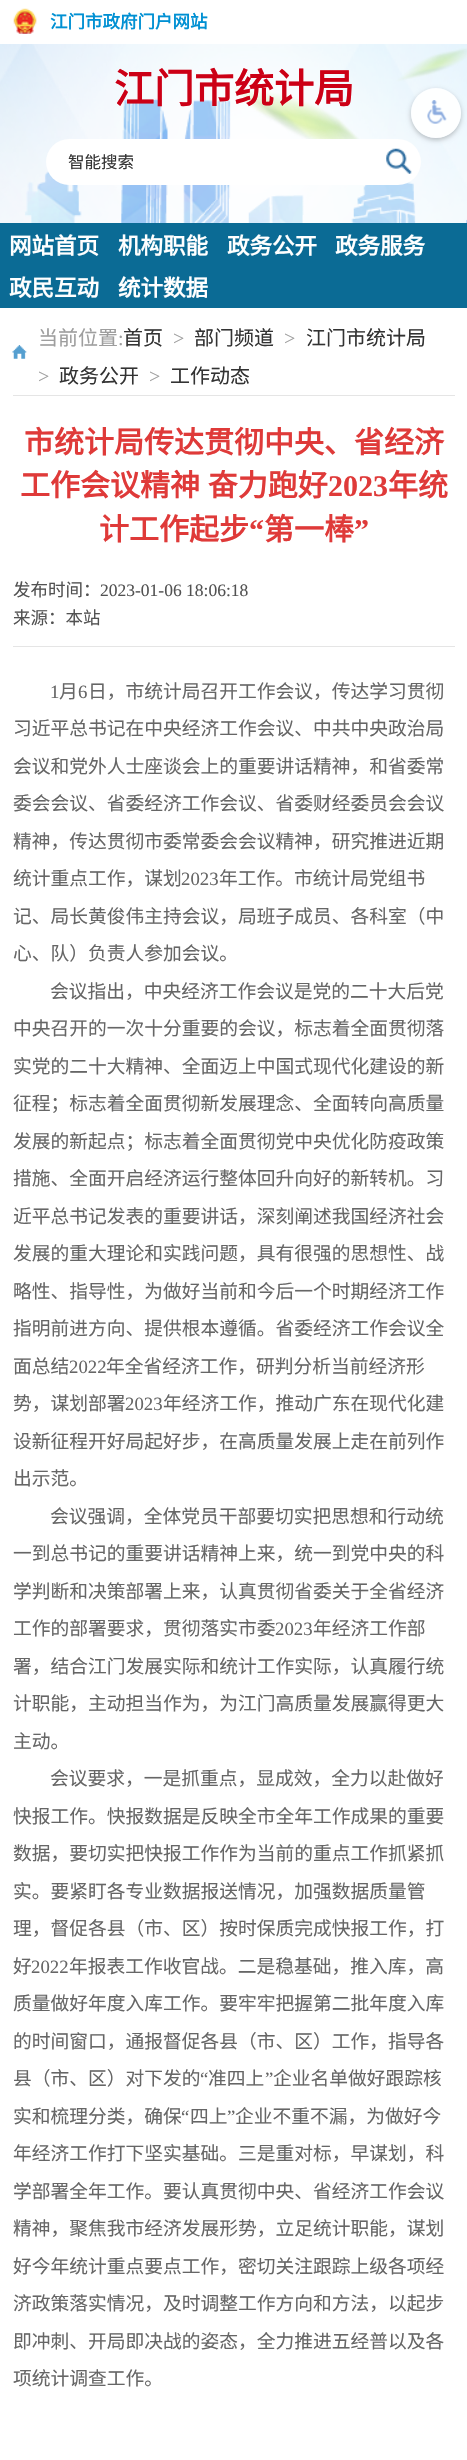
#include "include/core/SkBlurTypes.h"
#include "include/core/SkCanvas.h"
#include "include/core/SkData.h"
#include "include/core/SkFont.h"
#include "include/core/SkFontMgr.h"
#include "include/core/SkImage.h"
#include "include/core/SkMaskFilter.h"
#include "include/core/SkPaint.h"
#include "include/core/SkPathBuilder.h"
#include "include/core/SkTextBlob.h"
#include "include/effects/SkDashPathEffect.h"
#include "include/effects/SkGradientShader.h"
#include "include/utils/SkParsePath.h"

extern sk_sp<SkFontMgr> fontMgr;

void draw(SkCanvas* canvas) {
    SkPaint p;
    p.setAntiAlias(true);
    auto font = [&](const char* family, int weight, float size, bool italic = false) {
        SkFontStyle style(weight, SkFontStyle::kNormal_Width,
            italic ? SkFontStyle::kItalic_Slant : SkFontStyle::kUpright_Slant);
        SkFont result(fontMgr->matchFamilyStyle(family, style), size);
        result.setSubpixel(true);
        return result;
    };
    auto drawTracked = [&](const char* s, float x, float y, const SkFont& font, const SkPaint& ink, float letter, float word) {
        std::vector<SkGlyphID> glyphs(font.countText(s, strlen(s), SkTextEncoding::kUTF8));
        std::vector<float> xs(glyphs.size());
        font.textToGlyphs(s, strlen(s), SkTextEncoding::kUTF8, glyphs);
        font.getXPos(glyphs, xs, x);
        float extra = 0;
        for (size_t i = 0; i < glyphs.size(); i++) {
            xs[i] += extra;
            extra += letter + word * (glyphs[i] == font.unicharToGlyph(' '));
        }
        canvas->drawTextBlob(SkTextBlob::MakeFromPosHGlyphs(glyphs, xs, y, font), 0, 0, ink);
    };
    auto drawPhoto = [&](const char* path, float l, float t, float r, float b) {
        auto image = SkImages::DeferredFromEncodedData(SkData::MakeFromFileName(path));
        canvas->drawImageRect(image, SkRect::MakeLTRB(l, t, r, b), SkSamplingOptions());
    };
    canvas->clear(0xFFF9FBFD);
    drawPhoto("media/1.png", 0, 44, 467, 223);
    p.setColor(0xFFFFFFFF);
    canvas->drawRect(SkRect::MakeLTRB(0, 0, 467, 44), p);
    drawPhoto("media/2.png", 13, 8, 37, 34);
    auto font1 = font("Noto Sans CJK SC", 700, 17.5f);
    p.setColor(0xFF0090D3);
    canvas->drawString("江门市政府门户网站", 50, 28, font1, p);
    auto font2 = font("Noto Sans CJK SC", 700, 40);
    p.setColor(0xFFCC0016);
    canvas->drawString("江门市统计局", 114, 103, font2, p);
    p.setColor(0xFFFFFFFF);
    canvas->drawRoundRect(SkRect::MakeLTRB(46, 139, 421, 185), 23, 23, p);
    auto font3 = font("Noto Sans CJK SC", 400, 16.5f);
    p.setColor(0xFF333333);
    canvas->drawString("智能搜索", 68, 168, font3, p);
    drawPhoto("media/3.png", 386, 148, 412, 174);
    p.setColor(0xFF0B6B95);
    canvas->drawRect(SkRect::MakeLTRB(0, 223, 467, 308), p);
    auto font4 = font("Noto Sans CJK SC", 700, 22.5f);
    p.setColor(0xFFFFFFFF);
    {
        const struct { const char* s; float x, y; } items[] = {
            {"网站首页", 9, 254},
            {"机构职能", 118, 254},
            {"政务公开", 227, 254},
            {"政务服务", 335, 254},
            {"政民互动", 9, 296},
            {"统计数据", 118, 296},
        };
        for (auto [s, x, y] : items) {
            canvas->drawString(s, x, y, font4, p);
        }
    }
    canvas->save();
    canvas->clipPath(SkPathBuilder(SkPathFillType::kEvenOdd).moveTo(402, 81).lineTo(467, 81).lineTo(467, 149).lineTo(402, 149).close().moveTo(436, 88).cubicTo(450, 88, 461, 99, 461, 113).cubicTo(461, 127, 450, 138, 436, 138).cubicTo(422, 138, 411, 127, 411, 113).cubicTo(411, 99, 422, 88, 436, 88).close().detach(), true);
    p.setColor(0x40000000);
    p.setMaskFilter(SkMaskFilter::MakeBlur(kNormal_SkBlurStyle, 2.5f));
    canvas->drawRoundRect(SkRect::MakeLTRB(411, 90, 461, 140), 25, 25, p);
    p.setMaskFilter(nullptr);
    canvas->restore();
    p.setColor(0xE6FFFFFF);
    canvas->drawCircle(436, 113, 25, p);
    drawPhoto("media/4.png", 427, 100, 447, 124);
    p.setColor(0xFFFFFFFF);
    canvas->drawRect(SkRect::MakeLTRB(0, 308, 467, 2460), p);
    p.setColor(0xFFE5E5E5);
    canvas->drawRect(SkRect::MakeLTRB(13, 395, 455, 396), p);
    drawPhoto("media/5.png", 12, 345, 27, 359);
    auto font5 = font("Noto Sans CJK SC", 400, 20);
    p.setColor(0xFF9E9E9E);
    canvas->drawString("当前位置", 38, 345, font5, p);
    auto font6 = font("Liberation Serif", 400, 20);
    canvas->drawString(":", 118, 345, font6, p);
    p.setColor(0xFF333333);
    canvas->drawString("首页", 123, 345, font5, p);
    p.setColor(0xFF9E9E9E);
    canvas->drawString(">", 173, 345, font6, p);
    p.setColor(0xFF333333);
    canvas->drawString("部门频道", 194, 345, font5, p);
    p.setColor(0xFF9E9E9E);
    canvas->drawString(">", 284, 345, font6, p);
    p.setColor(0xFF333333);
    canvas->drawString("江门市统计局", 306, 345, font5, p);
    p.setColor(0xFF9E9E9E);
    canvas->drawString(">", 38, 383, font6, p);
    p.setColor(0xFF333333);
    canvas->drawString("政务公开", 59, 383, font5, p);
    p.setColor(0xFF9E9E9E);
    canvas->drawString(">", 149, 383, font6, p);
    p.setColor(0xFF333333);
    canvas->drawString("工作动态", 170, 383, font5, p);
    auto font7 = font("Noto Sans CJK SC", 700, 30);
    p.setColor(0xFFDF3A39);
    canvas->drawString("市统计局传达贯彻中央、省经济", 24, 453, font7, p);
    drawTracked("工作会议精神 奋力跑好", 20, 496, font7, p, 0, 1);
    auto font8 = font("Liberation Serif", 700, 30);
    canvas->drawString("2023", 328, 496, font8, p);
    canvas->drawString("年统", 388, 496, font7, p);
    canvas->drawString("计工作起步", 99, 540, font7, p);
    canvas->drawString("“", 249, 540, font8, p);
    canvas->drawString("第一棒", 264, 540, font7, p);
    canvas->drawString("”", 354, 540, font8, p);
    p.setColor(0xFFE5E5E5);
    canvas->drawRect(SkRect::MakeLTRB(13, 646, 455, 647), p);
    auto font9 = font("Noto Sans CJK SC", 400, 17.5f);
    p.setColor(0xFF525252);
    canvas->drawString("发布时间：", 13, 596, font9, p);
    auto font10 = font("Liberation Serif", 400, 17.5f);
    canvas->drawString("2023-01-06 18:06:18", 100, 596, font10, p);
    canvas->drawString("来源：本站", 13, 624, font9, p);
    auto font11 = font("Liberation Serif", 400, 18.75f);
    p.setColor(0xFF666666);
    canvas->drawString("1", 50, 698, font11, p);
    auto font12 = font("Noto Sans CJK SC", 400, 18.75f);
    canvas->drawString("月", 59, 698, font12, p);
    canvas->drawString("6", 78, 698, font11, p);
    {
        const struct { const char* s; float x, y; } items[] = {
            {"日，市统计局召开工作会议，传达学习贯彻", 88, 698},
            {"习近平总书记在中央经济工作会议、中共中央政治局", 13, 735},
            {"会议和党外人士座谈会上的重要讲话精神，和省委常", 13, 773},
            {"委会会议、省委经济工作会议、省委财经委员会会议", 13, 810},
            {"精神，传达贯彻市委常委会会议精神，研究推进近期", 13, 848},
            {"统计重点工作，谋划", 13, 885},
        };
        for (auto [s, x, y] : items) {
            canvas->drawString(s, x, y, font12, p);
        }
    }
    canvas->drawString("2023", 181, 885, font11, p);
    {
        const struct { const char* s; float x, y; } items[] = {
            {"年工作。市统计局党组书", 219, 885},
            {"记、局长黄俊伟主持会议，局班子成员、各科室（中", 13, 923},
            {"心、队）负责人参加会议。", 13, 960},
            {"会议指出，中央经济工作会议是党的二十大后党", 50, 998},
            {"中央召开的一次十分重要的会议，标志着全面贯彻落", 13, 1035},
            {"实党的二十大精神、全面迈上中国式现代化建设的新", 13, 1073},
            {"征程；标志着全面贯彻新发展理念、全面转向高质量", 13, 1110},
            {"发展的新起点；标志着全面贯彻党中央优化防疫政策", 13, 1148},
            {"措施、全面开启经济运行整体回升向好的新转机。习", 13, 1185},
            {"近平总书记发表的重要讲话，深刻阐述我国经济社会", 13, 1223},
            {"发展的重大理论和实践问题，具有很强的思想性、战", 13, 1260},
            {"略性、指导性，为做好当前和今后一个时期经济工作", 13, 1298},
            {"指明前进方向、提供根本遵循。省委经济工作会议全", 13, 1335},
            {"面总结", 13, 1373},
        };
        for (auto [s, x, y] : items) {
            canvas->drawString(s, x, y, font12, p);
        }
    }
    canvas->drawString("2022", 69, 1373, font11, p);
    canvas->drawString("年全省经济工作，研判分析当前经济形", 106, 1373, font12, p);
    canvas->drawString("势，谋划部署", 13, 1410, font12, p);
    canvas->drawString("2023", 125, 1410, font11, p);
    {
        const struct { const char* s; float x, y; } items[] = {
            {"年经济工作，推动广东在现代化建", 163, 1410},
            {"设新征程开好局起好步，在高质量发展上走在前列作", 13, 1448},
            {"出示范。", 13, 1485},
            {"会议强调，全体党员干部要切实把思想和行动统", 50, 1523},
            {"一到总书记的重要讲话精神上来，统一到党中央的科", 13, 1560},
            {"学判断和决策部署上来，认真贯彻省委关于全省经济", 13, 1598},
            {"工作的部署要求，贯彻落实市委", 13, 1635},
        };
        for (auto [s, x, y] : items) {
            canvas->drawString(s, x, y, font12, p);
        }
    }
    canvas->drawString("2023", 275, 1635, font11, p);
    {
        const struct { const char* s; float x, y; } items[] = {
            {"年经济工作部", 313, 1635},
            {"署，结合江门发展实际和统计工作实际，认真履行统", 13, 1673},
            {"计职能，主动担当作为，为江门高质量发展赢得更大", 13, 1710},
            {"主动。", 13, 1748},
            {"会议要求，一是抓重点，显成效，全力以赴做好", 50, 1785},
            {"快报工作。快报数据是反映全市全年工作成果的重要", 13, 1823},
            {"数据，要切实把快报工作作为当前的重点工作抓紧抓", 13, 1860},
            {"实。要紧盯各专业数据报送情况，加强数据质量管", 13, 1898},
            {"理，督促各县（市、区）按时保质完成快报工作，打", 13, 1935},
            {"好", 13, 1973},
        };
        for (auto [s, x, y] : items) {
            canvas->drawString(s, x, y, font12, p);
        }
    }
    canvas->drawString("2022", 31, 1973, font11, p);
    {
        const struct { const char* s; float x, y; } items[] = {
            {"年报表工作收官战。二是稳基础，推入库，高", 69, 1973},
            {"质量做好年度入库工作。要牢牢把握第二批年度入库", 13, 2010},
            {"的时间窗口，通报督促各县（市、区）工作，指导各", 13, 2048},
            {"县（市、区）对下发的", 13, 2085},
        };
        for (auto [s, x, y] : items) {
            canvas->drawString(s, x, y, font12, p);
        }
    }
    canvas->drawString("“", 200, 2085, font11, p);
    canvas->drawString("准四上", 208, 2085, font12, p);
    canvas->drawString("”", 265, 2085, font11, p);
    canvas->drawString("企业名单做好跟踪核", 273, 2085, font12, p);
    canvas->drawString("实和梳理分类，确保", 13, 2123, font12, p);
    canvas->drawString("“", 181, 2123, font11, p);
    canvas->drawString("四上", 190, 2123, font12, p);
    canvas->drawString("”", 227, 2123, font11, p);
    {
        const struct { const char* s; float x, y; } items[] = {
            {"企业不重不漏，为做好今", 235, 2123},
            {"年经济工作打下坚实基础。三是重对标，早谋划，科", 13, 2160},
            {"学部署全年工作。要认真贯彻中央、省经济工作会议", 13, 2198},
            {"精神，聚焦我市经济发展形势，立足统计职能，谋划", 13, 2235},
            {"好今年统计重点要点工作，密切关注跟踪上级各项经", 13, 2273},
            {"济政策落实情况，及时调整工作方向和方法，以起步", 13, 2310},
            {"即冲刺、开局即决战的姿态，全力推进五经普以及各", 13, 2348},
            {"项统计调查工作。", 13, 2385},
        };
        for (auto [s, x, y] : items) {
            canvas->drawString(s, x, y, font12, p);
        }
    }
}
